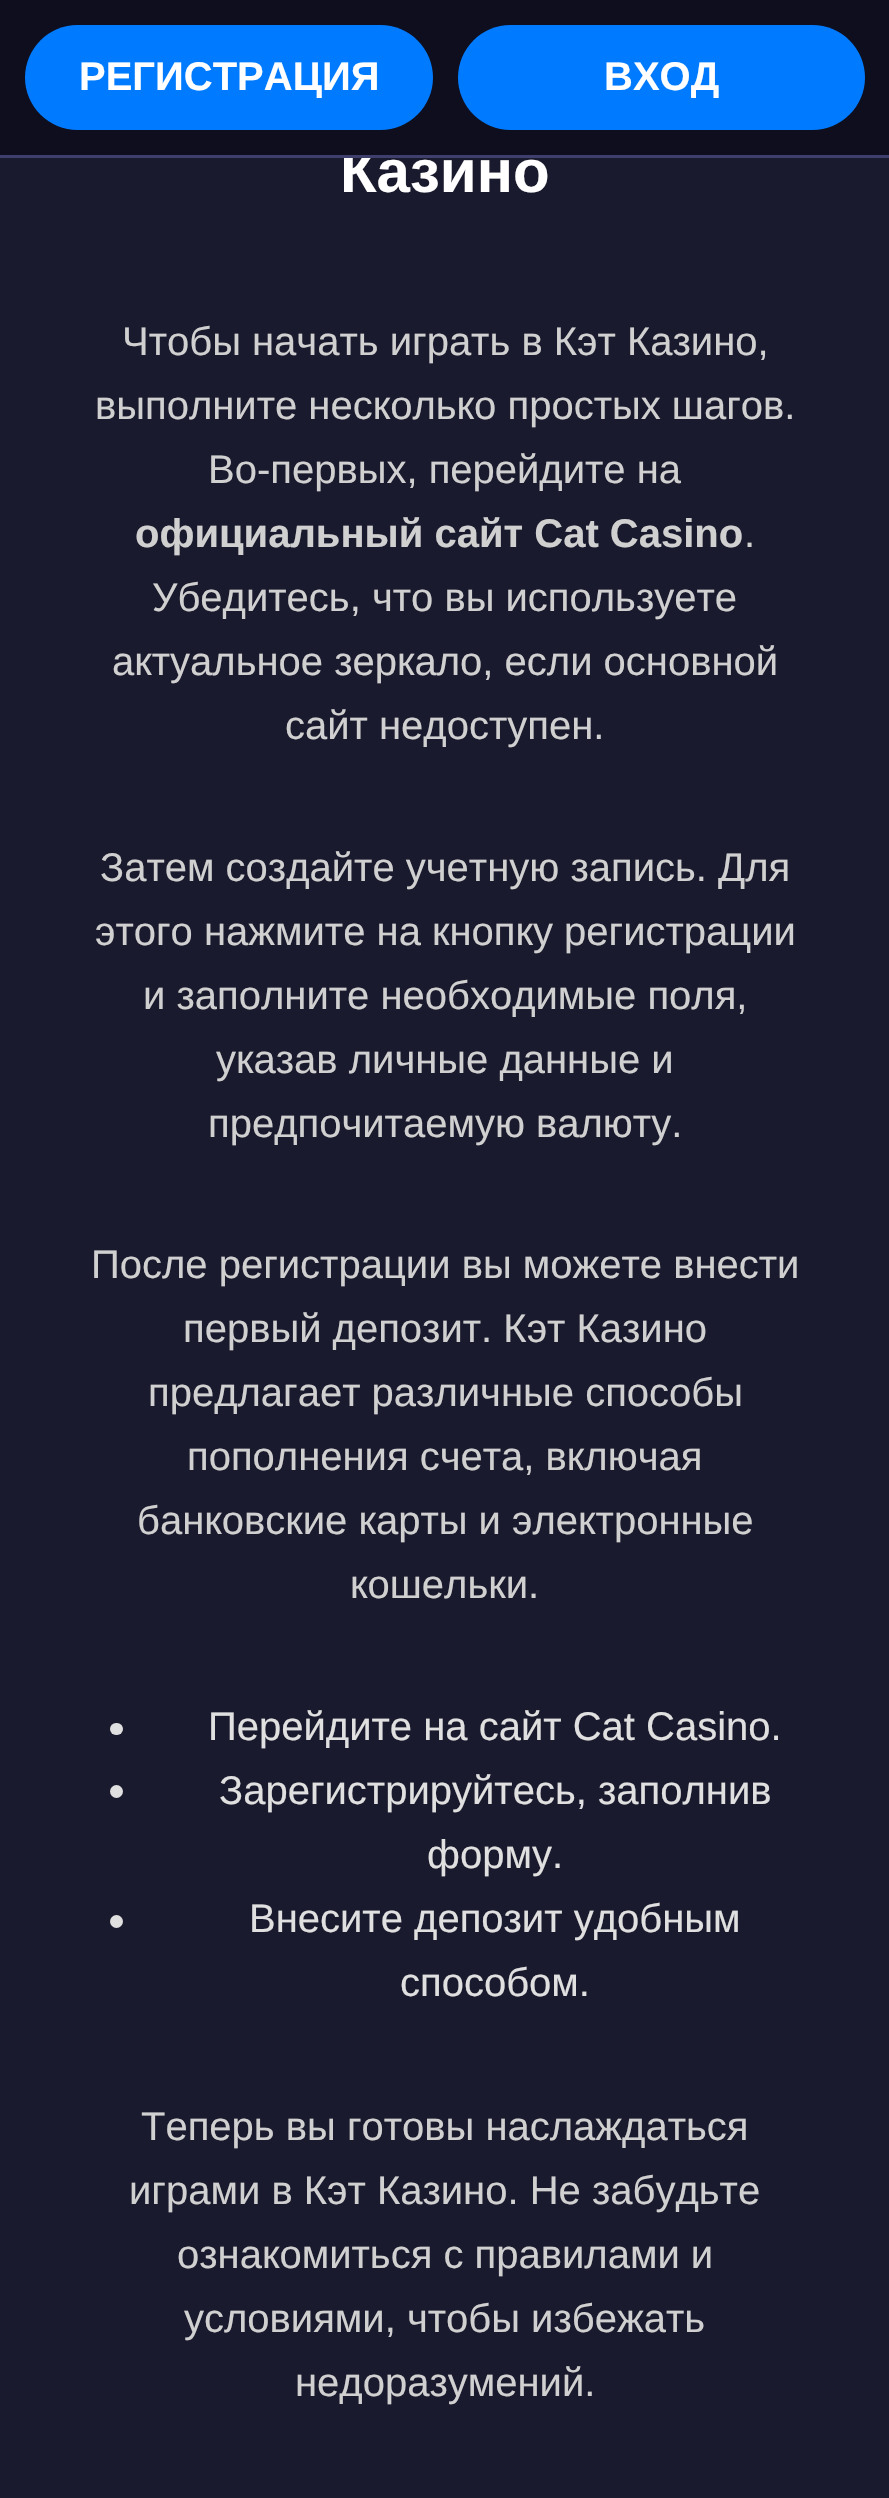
#include "include/core/SkBlurTypes.h"
#include "include/core/SkCanvas.h"
#include "include/core/SkData.h"
#include "include/core/SkFont.h"
#include "include/core/SkFontMgr.h"
#include "include/core/SkImage.h"
#include "include/core/SkMaskFilter.h"
#include "include/core/SkPaint.h"
#include "include/core/SkPathBuilder.h"
#include "include/core/SkTextBlob.h"
#include "include/effects/SkDashPathEffect.h"
#include "include/effects/SkGradientShader.h"
#include "include/utils/SkParsePath.h"

extern sk_sp<SkFontMgr> fontMgr;

void draw(SkCanvas* canvas) {
    SkPaint p;
    p.setAntiAlias(true);
    auto font = [&](const char* family, int weight, float size, bool italic = false) {
        SkFontStyle style(weight, SkFontStyle::kNormal_Width,
            italic ? SkFontStyle::kItalic_Slant : SkFontStyle::kUpright_Slant);
        SkFont result(fontMgr->matchFamilyStyle(family, style), size);
        result.setSubpixel(true);
        return result;
    };
    canvas->clear(0xFF1A1A2E);
    auto font1 = font("Liberation Sans", 700, 60);
    p.setColor(0xFFFFFFFF);
    canvas->drawString("Казино", 340, 192, font1, p);
    p.setColor(0xFF0E0E1E);
    canvas->drawRect(SkRect::MakeLTRB(0, 0, 889, 155), p);
    p.setColor(0xFF3F3F6E);
    canvas->drawRect(SkRect::MakeLTRB(0, 155, 889, 158), p);
    p.setColor(0xFF007BFF);
    canvas->drawRoundRect(SkRect::MakeLTRB(25, 25, 433, 130), 52.5f, 52.5f, p);
    auto font2 = font("Liberation Sans", 700, 40);
    p.setColor(0xFFFFFFFF);
    canvas->drawString("РЕГИСТРАЦИЯ", 79, 90, font2, p);
    p.setColor(0xFF007BFF);
    canvas->drawRoundRect(SkRect::MakeLTRB(458, 25, 865, 130), 52.5f, 52.5f, p);
    p.setColor(0xFFFFFFFF);
    canvas->drawString("ВХОД", 604, 90, font2, p);
    auto font3 = font("Liberation Sans", 400, 40);
    p.setColor(0xFFD0D0D0);
    {
        const struct { const char* s; float x, y; } items[] = {
            {"Чтобы начать играть в Кэт Казино,", 122, 355},
            {"выполните несколько простых шагов.", 95, 419},
            {"Во-первых, перейдите на", 208, 483},
        };
        for (auto [s, x, y] : items) {
            canvas->drawString(s, x, y, font3, p);
        }
    }
    canvas->drawString("официальный сайт Cat Casino", 135, 547, font2, p);
    {
        const struct { const char* s; float x, y; } items[] = {
            {".", 744, 547},
            {"Убедитесь, что вы используете", 152, 611},
            {"актуальное зеркало, если основной", 112, 675},
            {"сайт недоступен.", 285, 739},
            {"Затем создайте учетную запись. Для", 100, 881},
            {"этого нажмите на кнопку регистрации", 95, 945},
            {"и заполните необходимые поля,", 143, 1009},
            {"указав личные данные и", 216, 1073},
            {"предпочитаемую валюту.", 208, 1137},
            {"После регистрации вы можете внести", 91, 1278},
            {"первый депозит. Кэт Казино", 183, 1342},
            {"предлагает различные способы", 148, 1406},
            {"пополнения счета, включая", 187, 1470},
            {"банковские карты и электронные", 137, 1534},
            {"кошельки.", 350, 1598},
        };
        for (auto [s, x, y] : items) {
            canvas->drawString(s, x, y, font3, p);
        }
    }
    p.setColor(0xFFE0E0E0);
    canvas->drawRoundRect(SkRect::MakeLTRB(110, 1723, 123, 1735), 6, 6, p);
    canvas->drawString("Перейдите на сайт Cat Casino.", 208, 1740, font3, p);
    canvas->drawCircle(116.5f, 1791.5f, 6.5f, p);
    canvas->drawString("Зарегистрируйтесь, заполнив", 219, 1804, font3, p);
    canvas->drawString("форму.", 427, 1868, font3, p);
    canvas->drawCircle(116.5f, 1921.5f, 6.5f, p);
    canvas->drawString("Внесите депозит удобным", 249, 1932, font3, p);
    canvas->drawString("способом.", 400, 1996, font3, p);
    p.setColor(0xFFD0D0D0);
    {
        const struct { const char* s; float x, y; } items[] = {
            {"Теперь вы готовы наслаждаться", 141, 2140},
            {"играми в Кэт Казино. Не забудьте", 129, 2204},
            {"ознакомиться с правилами и", 177, 2268},
            {"условиями, чтобы избежать", 184, 2332},
            {"недоразумений.", 295, 2396},
        };
        for (auto [s, x, y] : items) {
            canvas->drawString(s, x, y, font3, p);
        }
    }
}
